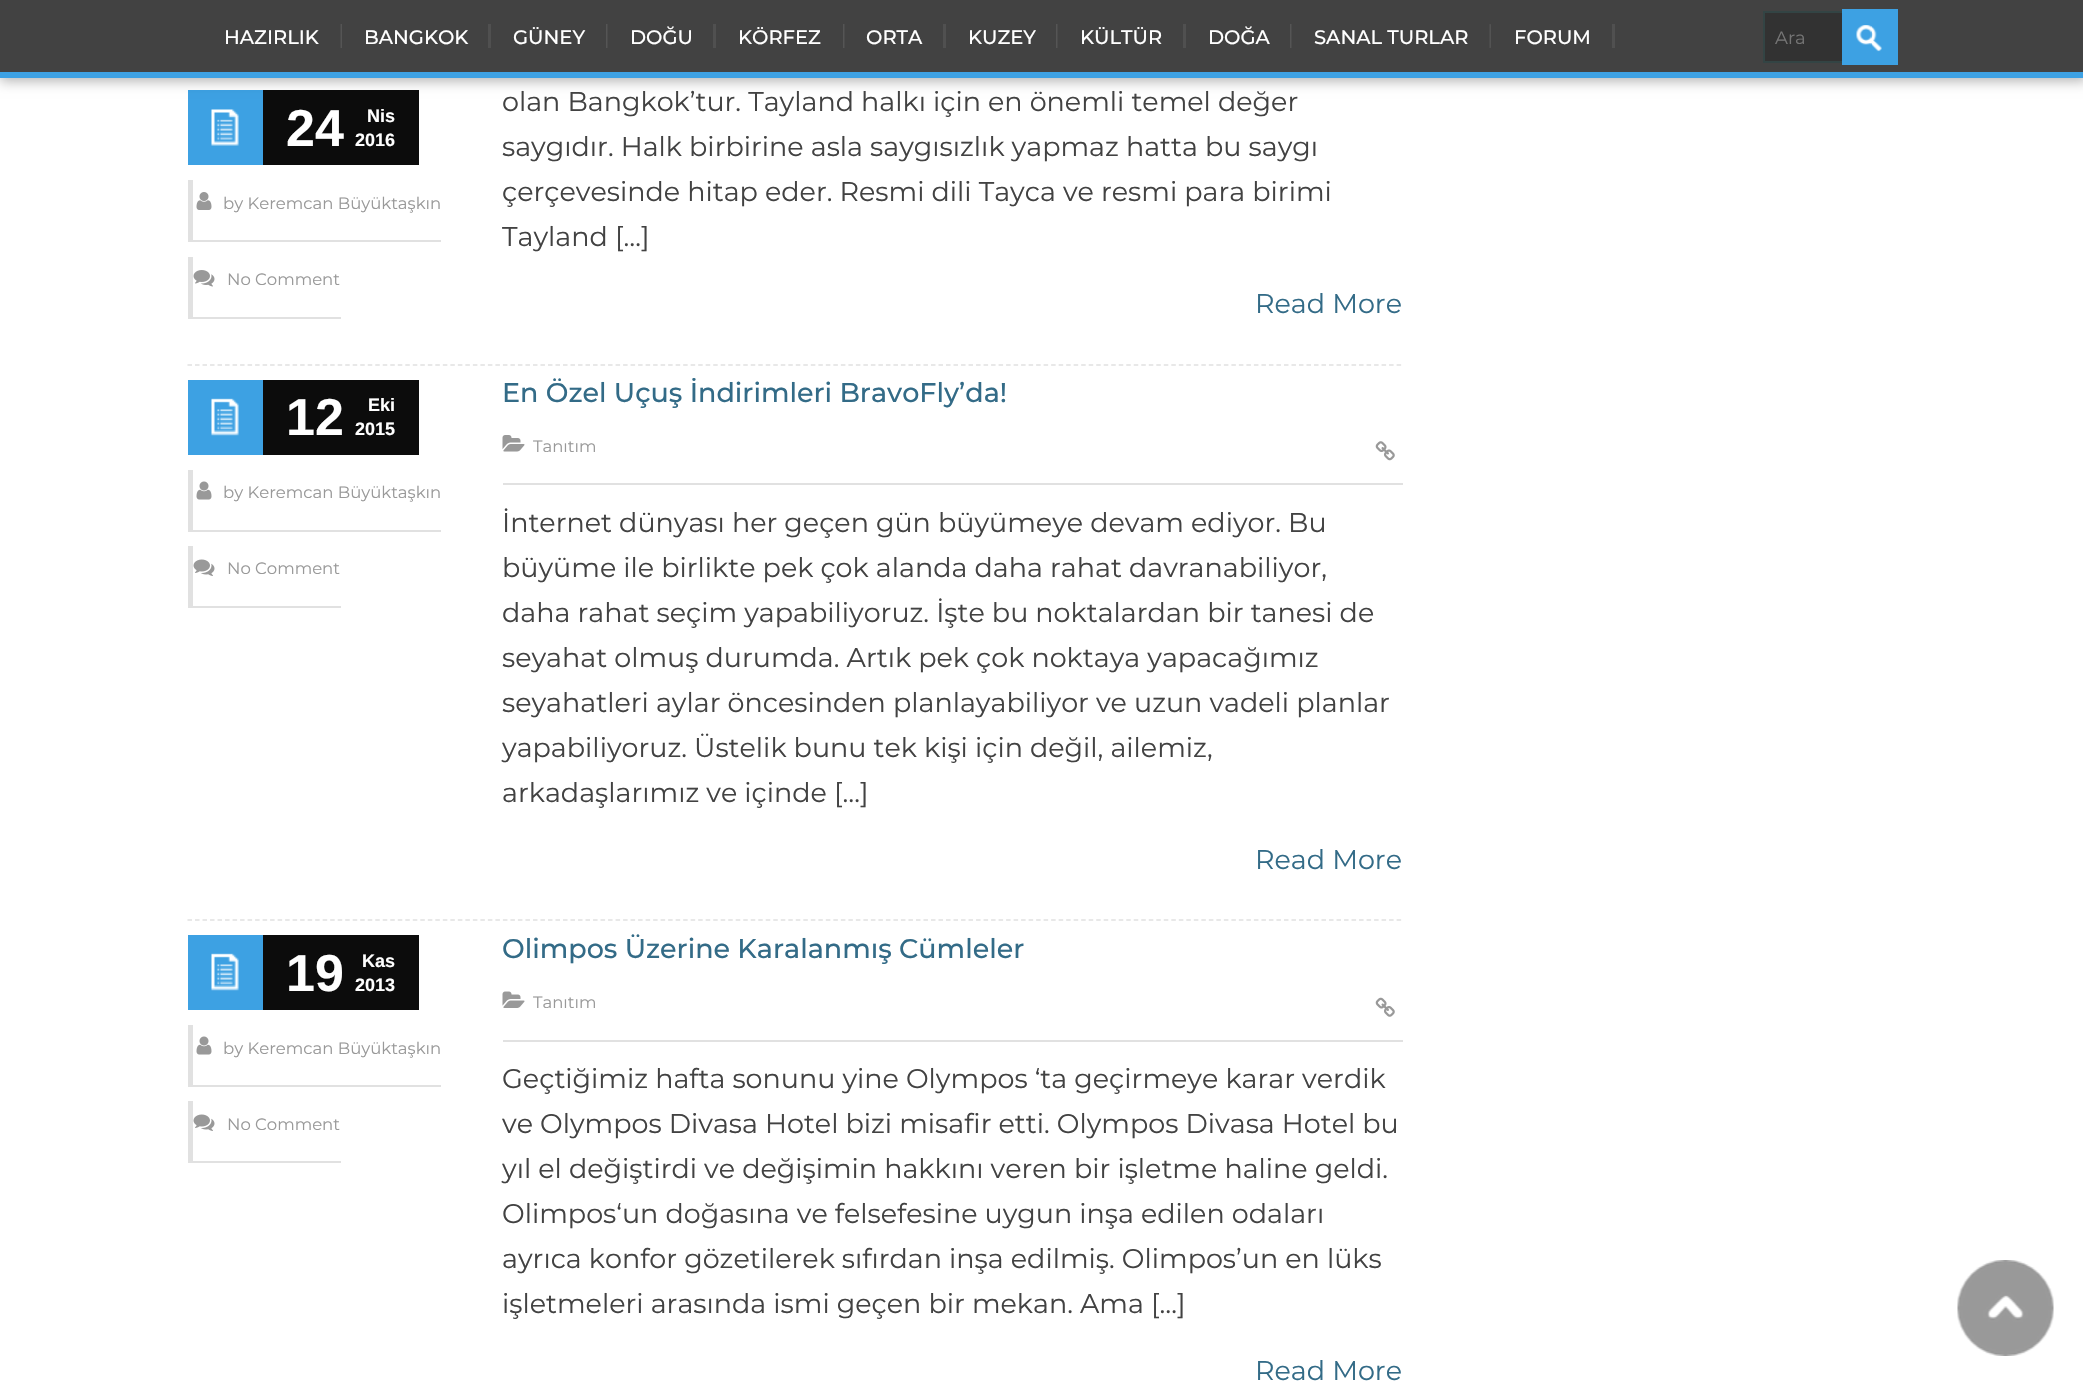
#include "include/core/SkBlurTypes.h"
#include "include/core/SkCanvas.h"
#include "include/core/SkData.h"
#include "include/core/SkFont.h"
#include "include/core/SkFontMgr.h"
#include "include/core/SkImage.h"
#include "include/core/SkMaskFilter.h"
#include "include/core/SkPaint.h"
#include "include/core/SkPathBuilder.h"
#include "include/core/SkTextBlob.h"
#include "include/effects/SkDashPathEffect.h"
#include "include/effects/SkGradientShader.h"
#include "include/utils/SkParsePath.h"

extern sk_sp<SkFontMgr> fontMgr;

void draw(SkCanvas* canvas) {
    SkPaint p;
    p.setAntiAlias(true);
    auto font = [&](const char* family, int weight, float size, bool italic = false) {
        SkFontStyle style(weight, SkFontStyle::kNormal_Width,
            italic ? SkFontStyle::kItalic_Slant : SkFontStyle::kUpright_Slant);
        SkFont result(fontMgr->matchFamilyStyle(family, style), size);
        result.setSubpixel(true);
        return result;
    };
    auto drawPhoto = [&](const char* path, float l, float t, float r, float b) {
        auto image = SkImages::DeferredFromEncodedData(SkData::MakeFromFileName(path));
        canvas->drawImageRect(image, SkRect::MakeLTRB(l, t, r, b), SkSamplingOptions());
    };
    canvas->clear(0xFFFFFFFF);
    p.setColor(0xFF3DA1E3);
    canvas->drawRect(SkRect::MakeLTRB(188, 90, 263, 165), p);
    p.setColor(0xFF0C0C0C);
    canvas->drawRect(SkRect::MakeLTRB(263, 90, 419, 165), p);
    p.setColor(0x4D000000);
    p.setMaskFilter(SkMaskFilter::MakeBlur(kNormal_SkBlurStyle, 6));
    canvas->drawRect(SkRect::MakeLTRB(0, 0, 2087, 81), p);
    p.setMaskFilter(nullptr);
    p.setColor(0xFF424242);
    canvas->drawRect(SkRect::MakeLTRB(0, 0, 2083, 72), p);
    p.setColor(0xFF3DA1E3);
    canvas->drawRect(SkRect::MakeLTRB(0, 72, 2083, 78), p);
    drawPhoto("media/1.png", 340, 24, 342, 48);
    auto font1 = font("Montserrat", 500, 19.5f);
    p.setColor(0xFFFFFFFF);
    canvas->drawString("HAZIRLIK", 224, 44, font1, p);
    p.setColor(0xFF505050);
    canvas->drawRect(SkRect::MakeLTRB(488, 24, 491, 48), p);
    p.setColor(0xFFFFFFFF);
    canvas->drawString("BANGKOK", 364, 44, font1, p);
    drawPhoto("media/2.png", 606, 24, 608, 48);
    canvas->drawString("GÜNEY", 513, 44, font1, p);
    p.setColor(0xFF505050);
    canvas->drawRect(SkRect::MakeLTRB(713, 24, 716, 48), p);
    p.setColor(0xFFFFFFFF);
    canvas->drawString("DOĞU", 630, 44, font1, p);
    drawPhoto("media/2.png", 843, 24, 845, 48);
    canvas->drawString("KÖRFEZ", 738, 44, font1, p);
    p.setColor(0xFF505050);
    canvas->drawRect(SkRect::MakeLTRB(943, 24, 946, 48), p);
    p.setColor(0xFFFFFFFF);
    canvas->drawString("ORTA", 866, 44, font1, p);
    drawPhoto("media/2.png", 1056, 24, 1058, 48);
    canvas->drawString("KUZEY", 968, 44, font1, p);
    p.setColor(0xFF505050);
    canvas->drawRect(SkRect::MakeLTRB(1183, 24, 1186, 48), p);
    p.setColor(0xFFFFFFFF);
    canvas->drawString("KÜLTÜR", 1080, 44, font1, p);
    drawPhoto("media/2.png", 1290, 24, 1292, 48);
    canvas->drawString("DOĞA", 1208, 44, font1, p);
    drawPhoto("media/3.png", 1489, 24, 1491, 48);
    canvas->drawString("SANAL TURLAR", 1314, 44, font1, p);
    p.setColor(0xFF505050);
    canvas->drawRect(SkRect::MakeLTRB(1612, 24, 1615, 48), p);
    p.setColor(0xFFFFFFFF);
    canvas->drawString("FORUM", 1514, 44, font1, p);
    p.setColor(0xFF323232);
    canvas->drawRect(SkRect::MakeLTRB(1765, 13, 1842, 61), p);
    p.setStyle(SkPaint::kStroke_Style);
    p.setStrokeWidth(2);
    p.setColor(0xFF334444);
    canvas->drawRect(SkRect::MakeLTRB(1764, 12, 1897, 62), p);
    auto font2 = font("Montserrat", 400, 18);
    p.setStyle(SkPaint::kFill_Style);
    p.setColor(0xFF757575);
    canvas->drawString("Ara", 1775, 44, font2, p);
    p.setColor(0xFF3DA1E3);
    canvas->drawRect(SkRect::MakeLTRB(1842, 9, 1898, 65), p);
    drawPhoto("media/4.png", 1856, 25, 1882, 52);
    p.setStyle(SkPaint::kStroke_Style);
    p.setStrokeWidth(1.5f);
    p.setColor(0xFFE1E1E1);
    p.setPathEffect(SkDashPathEffect::Make({{4.5f, 3.01f}}, 0));
    canvas->drawPath(SkPathBuilder().moveTo(187.5f, 365).lineTo(1402.5f, 365).detach(), p);
    p.setPathEffect(nullptr);
    drawPhoto("media/5.png", 211, 109, 239, 146);
    auto font3 = font("Liberation Sans", 700, 52);
    p.setStyle(SkPaint::kFill_Style);
    p.setColor(0xFFFFFFFF);
    canvas->drawString("24", 286, 146, font3, p);
    auto font4 = font("Liberation Sans", 700, 18);
    canvas->drawString("Nis", 367, 122, font4, p);
    canvas->drawString("2016", 355, 146, font4, p);
    p.setColor(0xFFE1E1E1);
    canvas->drawRect(SkRect::MakeLTRB(188, 240, 441, 242), p);
    canvas->drawRect(SkRect::MakeLTRB(188, 180, 193, 242), p);
    drawPhoto("media/6.png", 196, 192, 212, 210);
    auto font5 = font("Montserrat", 400, 16.5f);
    p.setColor(0xFF999999);
    canvas->drawString("by Keremcan Büyüktaşkın", 223, 209, font5, p);
    p.setColor(0xFFE1E1E1);
    canvas->drawRect(SkRect::MakeLTRB(188, 317, 341, 319), p);
    canvas->drawRect(SkRect::MakeLTRB(188, 257, 193, 318), p);
    drawPhoto("media/7.png", 193, 270, 215, 287);
    p.setColor(0xFF999999);
    canvas->drawString("No Comment", 227, 285, font5, p);
    auto font6 = font("Montserrat", 400, 27);
    p.setColor(0xFF424242);
    {
        const struct { const char* s; float x, y; } items[] = {
            {"olan Bangkok’tur. Tayland halkı için en önemli temel değer", 502, 111},
            {"saygıdır. Halk birbirine asla saygısızlık yapmaz hatta bu saygı", 502, 156},
            {"çerçevesinde hitap eder. Resmi dili Tayca ve resmi para birimi", 502, 201},
            {"Tayland […]", 502, 246},
        };
        for (auto [s, x, y] : items) {
            canvas->drawString(s, x, y, font6, p);
        }
    }
    p.setColor(0xFF336B87);
    canvas->drawString("Read More", 1255, 313, font6, p);
    p.setStyle(SkPaint::kStroke_Style);
    p.setColor(0xFFE1E1E1);
    p.setPathEffect(SkDashPathEffect::Make({{4.5f, 3.01f}}, 0));
    canvas->drawPath(SkPathBuilder().moveTo(187.5f, 920).lineTo(1402.5f, 920).detach(), p);
    p.setPathEffect(nullptr);
    p.setStyle(SkPaint::kFill_Style);
    p.setColor(0xFF3DA1E3);
    canvas->drawRect(SkRect::MakeLTRB(188, 380, 263, 455), p);
    drawPhoto("media/8.png", 211, 398, 239, 436);
    p.setColor(0xFF0C0C0C);
    canvas->drawRect(SkRect::MakeLTRB(263, 380, 419, 455), p);
    p.setColor(0xFFFFFFFF);
    canvas->drawString("12", 286, 435, font3, p);
    canvas->drawString("Eki", 368, 411, font4, p);
    canvas->drawString("2015", 355, 435, font4, p);
    p.setColor(0xFFE1E1E1);
    canvas->drawRect(SkRect::MakeLTRB(188, 530, 441, 532), p);
    canvas->drawRect(SkRect::MakeLTRB(188, 470, 193, 531), p);
    drawPhoto("media/9.png", 196, 481, 212, 500);
    p.setColor(0xFF999999);
    canvas->drawString("by Keremcan Büyüktaşkın", 223, 498, font5, p);
    p.setColor(0xFFE1E1E1);
    canvas->drawRect(SkRect::MakeLTRB(188, 606, 341, 608), p);
    canvas->drawRect(SkRect::MakeLTRB(188, 546, 193, 608), p);
    drawPhoto("media/10.png", 193, 559, 215, 576);
    p.setColor(0xFF999999);
    canvas->drawString("No Comment", 227, 574, font5, p);
    auto font7 = font("Montserrat", 500, 27);
    p.setColor(0xFF336B87);
    canvas->drawString("En Özel Uçuş İndirimleri BravoFly’da!", 502, 402, font7, p);
    p.setColor(0xFFE1E1E1);
    canvas->drawRect(SkRect::MakeLTRB(503, 483, 1403, 485), p);
    drawPhoto("media/11.png", 502, 435, 525, 452);
    p.setColor(0xFF999999);
    canvas->drawString("Tanıtım", 533, 452, font5, p);
    drawPhoto("media/12.png", 1375, 441, 1395, 461);
    p.setColor(0xFF424242);
    {
        const struct { const char* s; float x, y; } items[] = {
            {"İnternet dünyası her geçen gün büyümeye devam ediyor. Bu", 502, 532},
            {"büyüme ile birlikte pek çok alanda daha rahat davranabiliyor,", 502, 577},
            {"daha rahat seçim yapabiliyoruz. İşte bu noktalardan bir tanesi de", 502, 622},
            {"seyahat olmuş durumda. Artık pek çok noktaya yapacağımız", 502, 667},
            {"seyahatleri aylar öncesinden planlayabiliyor ve uzun vadeli planlar", 502, 712},
            {"yapabiliyoruz. Üstelik bunu tek kişi için değil, ailemiz,", 502, 757},
            {"arkadaşlarımız ve içinde […]", 502, 802},
        };
        for (auto [s, x, y] : items) {
            canvas->drawString(s, x, y, font6, p);
        }
    }
    p.setColor(0xFF336B87);
    canvas->drawString("Read More", 1255, 869, font6, p);
    p.setColor(0xFF3DA1E3);
    canvas->drawRect(SkRect::MakeLTRB(188, 935, 263, 1010), p);
    drawPhoto("media/8.png", 211, 953, 239, 991);
    p.setColor(0xFF0C0C0C);
    canvas->drawRect(SkRect::MakeLTRB(263, 935, 419, 1010), p);
    p.setColor(0xFFFFFFFF);
    canvas->drawString("19", 286, 991, font3, p);
    canvas->drawString("Kas", 362, 967, font4, p);
    canvas->drawString("2013", 355, 991, font4, p);
    p.setColor(0xFFE1E1E1);
    canvas->drawRect(SkRect::MakeLTRB(188, 1085, 441, 1087), p);
    canvas->drawRect(SkRect::MakeLTRB(188, 1025, 193, 1086), p);
    drawPhoto("media/9.png", 196, 1036, 212, 1055);
    p.setColor(0xFF999999);
    canvas->drawString("by Keremcan Büyüktaşkın", 223, 1054, font5, p);
    p.setColor(0xFFE1E1E1);
    canvas->drawRect(SkRect::MakeLTRB(188, 1161, 341, 1163), p);
    canvas->drawRect(SkRect::MakeLTRB(188, 1101, 193, 1163), p);
    drawPhoto("media/10.png", 193, 1114, 215, 1131);
    p.setColor(0xFF999999);
    canvas->drawString("No Comment", 227, 1130, font5, p);
    p.setColor(0xFF336B87);
    canvas->drawString("Olimpos Üzerine Karalanmış Cümleler", 502, 958, font7, p);
    p.setColor(0xFFE1E1E1);
    canvas->drawRect(SkRect::MakeLTRB(503, 1040, 1403, 1042), p);
    drawPhoto("media/13.png", 502, 991, 525, 1008);
    p.setColor(0xFF999999);
    canvas->drawString("Tanıtım", 533, 1008, font5, p);
    drawPhoto("media/14.png", 1375, 997, 1395, 1017);
    p.setColor(0xFF424242);
    {
        const struct { const char* s; float x, y; } items[] = {
            {"Geçtiğimiz hafta sonunu yine Olympos ‘ta geçirmeye karar verdik", 502, 1088},
            {"ve Olympos Divasa Hotel bizi misafir etti. Olympos Divasa Hotel bu", 502, 1133},
            {"yıl el değiştirdi ve değişimin hakkını veren bir işletme haline geldi.", 502, 1178},
            {"Olimpos‘un doğasına ve felsefesine uygun inşa edilen odaları", 502, 1223},
            {"ayrıca konfor gözetilerek sıfırdan inşa edilmiş. Olimpos’un en lüks", 502, 1268},
            {"işletmeleri arasında ismi geçen bir mekan. Ama […]", 502, 1313},
        };
        for (auto [s, x, y] : items) {
            canvas->drawString(s, x, y, font6, p);
        }
    }
    p.setColor(0xFF336B87);
    canvas->drawString("Read More", 1255, 1380, font6, p);
    drawPhoto("media/15.png", 1957, 1260, 2054, 1356);
}
